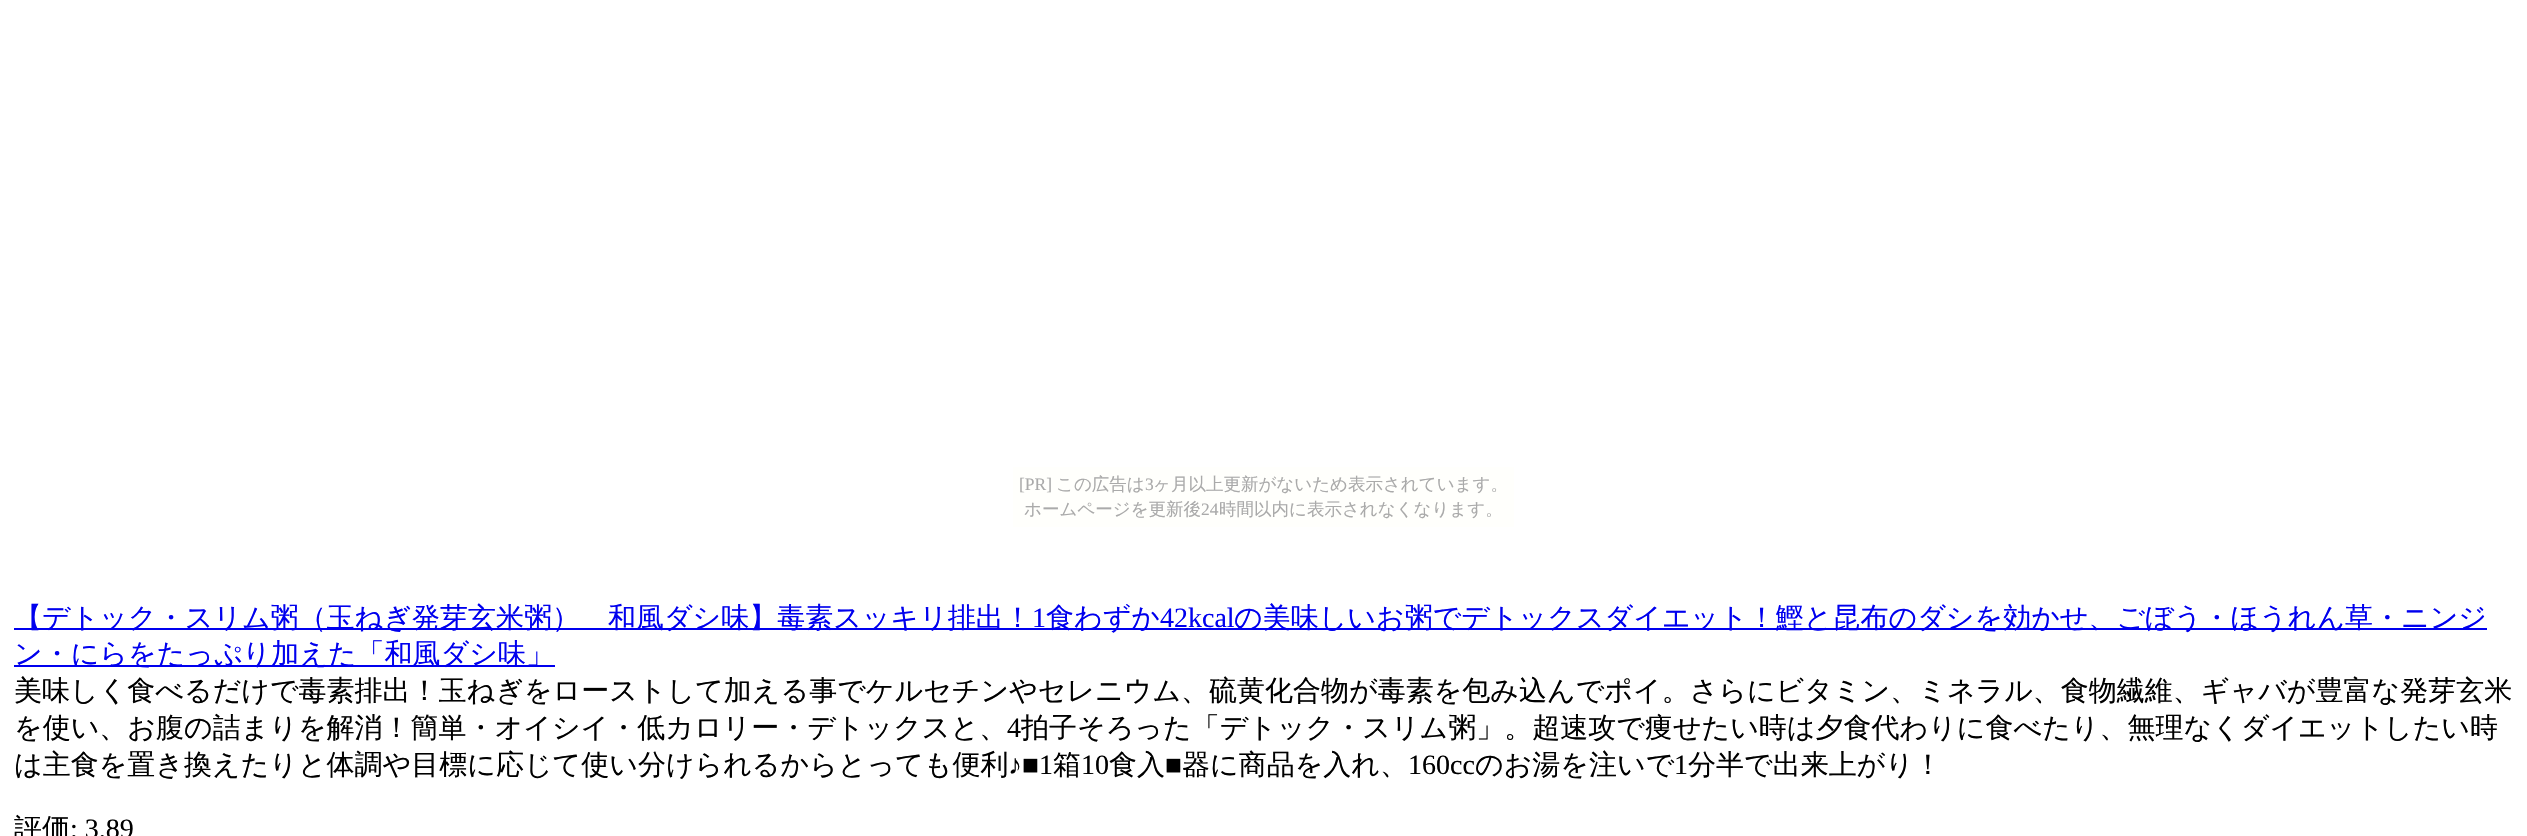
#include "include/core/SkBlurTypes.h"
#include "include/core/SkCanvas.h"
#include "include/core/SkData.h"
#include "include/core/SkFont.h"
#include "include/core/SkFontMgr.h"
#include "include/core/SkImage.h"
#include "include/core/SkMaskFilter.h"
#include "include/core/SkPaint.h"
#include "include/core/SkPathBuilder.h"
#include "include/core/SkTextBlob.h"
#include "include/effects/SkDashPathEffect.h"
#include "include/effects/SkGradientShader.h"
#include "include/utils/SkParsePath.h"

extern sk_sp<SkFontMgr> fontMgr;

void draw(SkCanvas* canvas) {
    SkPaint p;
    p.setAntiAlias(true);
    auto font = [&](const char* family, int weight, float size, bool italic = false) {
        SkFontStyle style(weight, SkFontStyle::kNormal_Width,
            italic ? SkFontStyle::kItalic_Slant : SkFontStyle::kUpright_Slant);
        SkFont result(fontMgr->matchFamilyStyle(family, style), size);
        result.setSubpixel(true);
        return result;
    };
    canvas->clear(0xFFFFFFFF);
    p.setColor(0xFFFFFFFC);
    canvas->drawRect(SkRect::MakeLTRB(1013, 467, 1514, 527), p);
    auto font1 = font("Liberation Serif", 400, 17.5f);
    p.setColor(0xFFAAAAAA);
    canvas->drawString("[PR]", 1019, 490, font1, p);
    auto font2 = font("WenQuanYi Zen Hei", 500, 17.5f);
    canvas->drawString("この広告は", 1056, 490, font2, p);
    canvas->drawString("3", 1145, 490, font1, p);
    canvas->drawString("ヶ月以上更新がないため表示されています。", 1153, 490, font2, p);
    canvas->drawString("ホームページを更新後", 1024, 515, font2, p);
    canvas->drawString("24", 1201, 515, font1, p);
    canvas->drawString("時間以内に表示されなくなります。", 1219, 515, font2, p);
    p.setColor(0xFF0000EE);
    canvas->drawRect(SkRect::MakeLTRB(14, 628, 2487, 630), p);
    auto font3 = font("WenQuanYi Zen Hei", 500, 28);
    canvas->drawString("【デトック・スリム粥（玉ねぎ発芽玄米粥）　和風ダシ味】毒素スッキリ排出！", 14, 627, font3, p);
    auto font4 = font("Liberation Serif", 400, 28);
    canvas->drawString("1", 1032, 627, font4, p);
    canvas->drawString("食わずか", 1046, 627, font3, p);
    canvas->drawString("42kcal", 1160, 627, font4, p);
    canvas->drawString("の美味しいお粥でデトックスダイエット！鰹と昆布のダシを効かせ、ごぼう・ほうれん草・ニンジ", 1234, 627, font3, p);
    canvas->drawRect(SkRect::MakeLTRB(14, 665, 555, 667), p);
    canvas->drawString("ン・にらをたっぷり加えた「和風ダシ味」", 14, 663, font3, p);
    p.setColor(0xFF000000);
    canvas->drawString("美味しく食べるだけで毒素排出！玉ねぎをローストして加える事でケルセチンやセレニウム、硫黄化合物が毒素を包み込んでポイ。さらにビタミン、ミネラル、食物繊維、ギャバが豊富な発芽玄米", 14, 700, font3, p);
    canvas->drawString("を使い、お腹の詰まりを解消！簡単・オイシイ・低カロリー・デトックスと、", 14, 737, font3, p);
    canvas->drawString("4", 1007, 737, font4, p);
    canvas->drawString("拍子そろった「デトック・スリム粥」。超速攻で痩せたい時は夕食代わりに食べたり、無理なくダイエットしたい時", 1021, 737, font3, p);
    canvas->drawString("は主食を置き換えたりと体調や目標に応じて使い分けられるからとっても便利", 14, 774, font3, p);
    canvas->drawString("♪■1", 1008, 774, font4, p);
    canvas->drawString("箱", 1053, 774, font3, p);
    canvas->drawString("10", 1081, 774, font4, p);
    canvas->drawString("食入", 1109, 774, font3, p);
    canvas->drawString("■", 1165, 774, font4, p);
    canvas->drawString("器に商品を入れ、", 1182, 774, font3, p);
    canvas->drawString("160cc", 1408, 774, font4, p);
    canvas->drawString("のお湯を注いで", 1475, 774, font3, p);
    canvas->drawString("1", 1674, 774, font4, p);
    canvas->drawString("分半で出来上がり！", 1688, 774, font3, p);
    canvas->drawString("評価", 14, 838, font3, p);
    canvas->drawString(": 3.89", 70, 838, font4, p);
}
